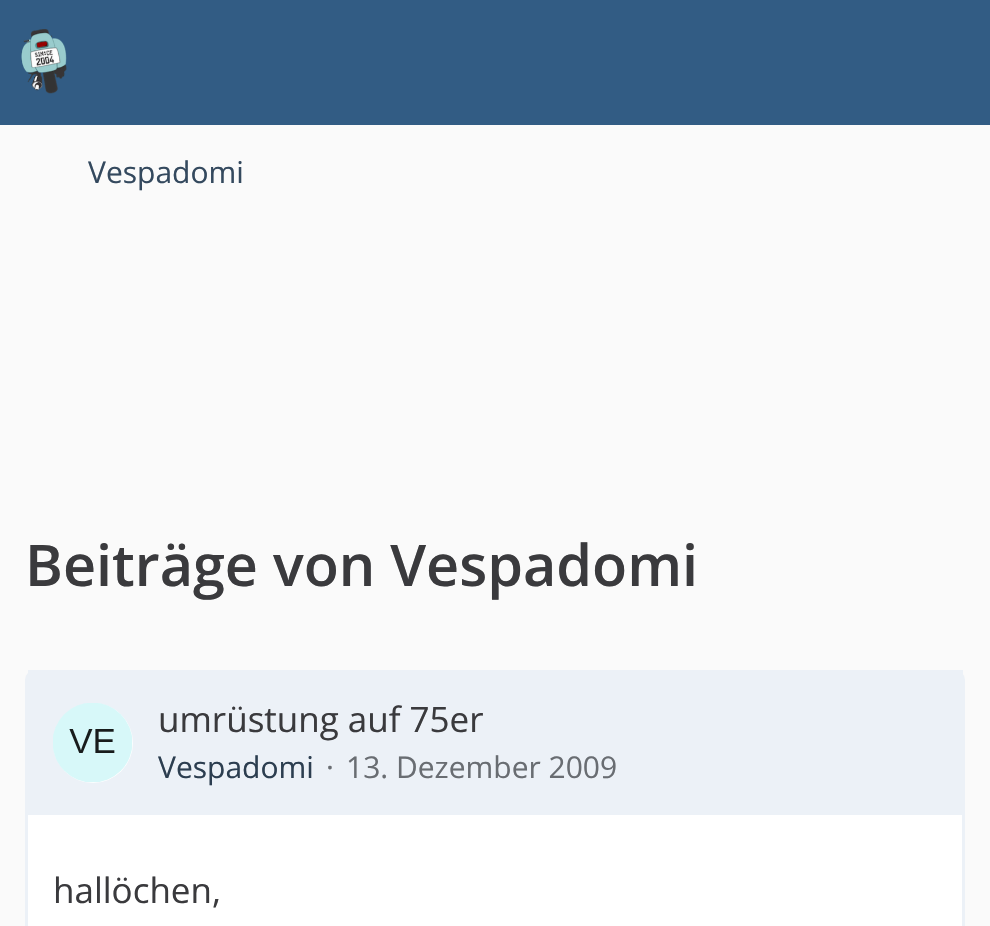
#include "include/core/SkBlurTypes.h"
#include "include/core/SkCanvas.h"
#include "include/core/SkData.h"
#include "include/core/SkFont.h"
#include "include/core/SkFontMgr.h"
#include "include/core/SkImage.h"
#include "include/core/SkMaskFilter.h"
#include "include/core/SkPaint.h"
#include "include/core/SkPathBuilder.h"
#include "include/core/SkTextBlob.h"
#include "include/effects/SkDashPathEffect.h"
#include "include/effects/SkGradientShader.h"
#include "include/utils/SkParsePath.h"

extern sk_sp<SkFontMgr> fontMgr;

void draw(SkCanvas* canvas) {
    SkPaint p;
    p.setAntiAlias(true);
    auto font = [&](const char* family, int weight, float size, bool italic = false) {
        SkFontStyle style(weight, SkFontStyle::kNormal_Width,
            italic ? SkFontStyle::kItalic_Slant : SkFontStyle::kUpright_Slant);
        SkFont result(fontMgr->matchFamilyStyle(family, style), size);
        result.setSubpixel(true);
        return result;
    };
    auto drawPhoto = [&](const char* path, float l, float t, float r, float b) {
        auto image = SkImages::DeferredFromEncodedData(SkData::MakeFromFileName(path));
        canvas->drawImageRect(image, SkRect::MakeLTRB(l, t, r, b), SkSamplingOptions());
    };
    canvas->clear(0xFFFAFAFA);
    p.setColor(0xFF325C84);
    canvas->drawRect(SkRect::MakeLTRB(0, 0, 990, 125), p);
    drawPhoto("media/1.png", 21, 29, 67, 94);
    auto font1 = font("Open Sans", 400, 30);
    p.setColor(0xFF34495E);
    canvas->drawString("Vespadomi", 88, 183, font1, p);
    auto font2 = font("Open Sans", 600, 57.5f);
    p.setColor(0xFF3A3A3D);
    canvas->drawString("Beiträge von Vespadomi", 25, 586, font2, p);
    p.setColor(0xFFFFFFFF);
    canvas->drawRoundRect(SkRect::MakeLTRB(26.5f, 671.5f, 963.5f, 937.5f), 8.5f, 8.5f, p);
    p.setStyle(SkPaint::kStroke_Style);
    p.setStrokeWidth(3);
    p.setColor(0xFFECF1F7);
    canvas->drawRoundRect(SkRect::MakeLTRB(26.5f, 671.5f, 963.5f, 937.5f), 8.5f, 8.5f, p);
    p.setStyle(SkPaint::kFill_Style);
    canvas->drawRect(SkRect::MakeLTRB(28, 670, 963, 815), p);
    p.setColor(0xFFFFFFFF);
    canvas->drawCircle(93, 743, 40, p);
    drawPhoto("media/2.png", 53, 703, 133, 783);
    auto font3 = font("Open Sans", 400, 35);
    p.setColor(0xFF3A3A3D);
    canvas->drawString("umrüstung auf 75er", 158, 732, font3, p);
    p.setColor(0xFF2C3E50);
    canvas->drawString("Vespadomi", 158, 778, font1, p);
    p.setColor(0xFF696D72);
    canvas->drawString("·", 326, 778, font1, p);
    canvas->drawString("13. Dezember 2009", 346, 778, font1, p);
    p.setColor(0xFF3A3A3D);
    canvas->drawString("hallöchen,", 53, 903, font3, p);
}
